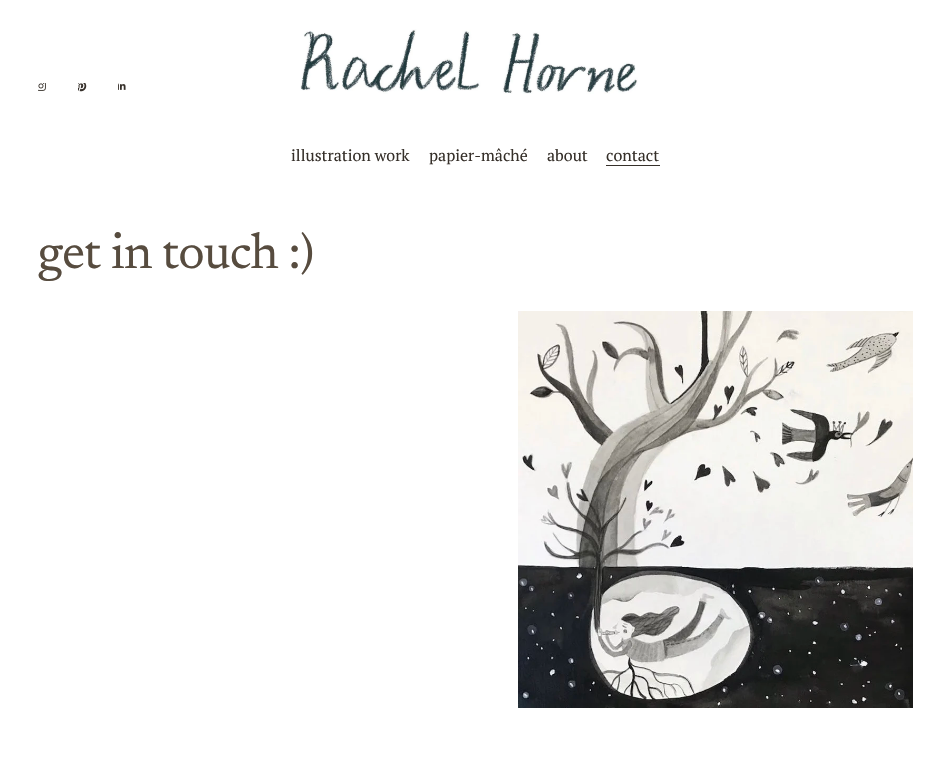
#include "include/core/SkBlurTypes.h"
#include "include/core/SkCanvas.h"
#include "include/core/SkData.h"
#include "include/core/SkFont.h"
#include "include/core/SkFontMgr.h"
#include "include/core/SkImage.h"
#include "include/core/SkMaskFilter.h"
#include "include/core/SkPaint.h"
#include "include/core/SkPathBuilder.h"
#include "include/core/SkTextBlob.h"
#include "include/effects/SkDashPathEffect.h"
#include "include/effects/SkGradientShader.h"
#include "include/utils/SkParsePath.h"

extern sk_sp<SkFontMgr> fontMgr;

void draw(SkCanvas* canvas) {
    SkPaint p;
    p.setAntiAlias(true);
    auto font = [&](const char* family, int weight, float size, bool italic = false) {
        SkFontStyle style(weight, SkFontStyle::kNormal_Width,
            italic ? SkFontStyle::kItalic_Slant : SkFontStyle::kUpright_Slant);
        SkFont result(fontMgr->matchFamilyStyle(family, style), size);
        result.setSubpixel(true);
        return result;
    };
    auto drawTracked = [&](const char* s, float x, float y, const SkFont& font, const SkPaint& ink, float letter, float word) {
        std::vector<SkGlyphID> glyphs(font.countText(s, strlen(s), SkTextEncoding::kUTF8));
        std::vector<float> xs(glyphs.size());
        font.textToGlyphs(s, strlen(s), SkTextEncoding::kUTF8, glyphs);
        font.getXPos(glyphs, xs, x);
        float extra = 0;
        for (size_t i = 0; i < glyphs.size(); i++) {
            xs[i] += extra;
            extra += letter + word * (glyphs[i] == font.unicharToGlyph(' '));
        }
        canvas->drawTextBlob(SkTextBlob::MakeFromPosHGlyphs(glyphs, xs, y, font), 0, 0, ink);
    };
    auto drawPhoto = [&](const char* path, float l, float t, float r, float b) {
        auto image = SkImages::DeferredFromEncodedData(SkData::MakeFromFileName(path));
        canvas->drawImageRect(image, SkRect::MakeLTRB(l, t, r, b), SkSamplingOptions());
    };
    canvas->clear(0xFFFFFFFF);
    drawPhoto("media/1.png", 38, 83, 46, 91);
    drawPhoto("media/2.png", 78, 83, 87, 92);
    drawPhoto("media/3.png", 118, 83, 126, 90);
    drawPhoto("media/4.png", 300, 29, 638, 94);
    auto font1 = font("PT Serif", 400, 16);
    p.setColor(0xFF36302A);
    {
        const struct { const char* s; float x, y; } items[] = {
            {"illustration work", 291, 161},
            {"papier-mâché", 429, 161},
            {"about", 547, 161},
        };
        for (auto [s, x, y] : items) {
            canvas->drawString(s, x, y, font1, p);
        }
    }
    canvas->drawRect(SkRect::MakeLTRB(606, 165, 660, 166), p);
    canvas->drawString("contact", 606, 161, font1, p);
    auto font2 = font("Newsreader", 400, 50.25f);
    p.setColor(0xFF574C3F);
    drawTracked("get in touch :)", 38, 268, font2, p, -1, 0);
    drawPhoto("media/5.png", 518, 311, 913, 708);
}
